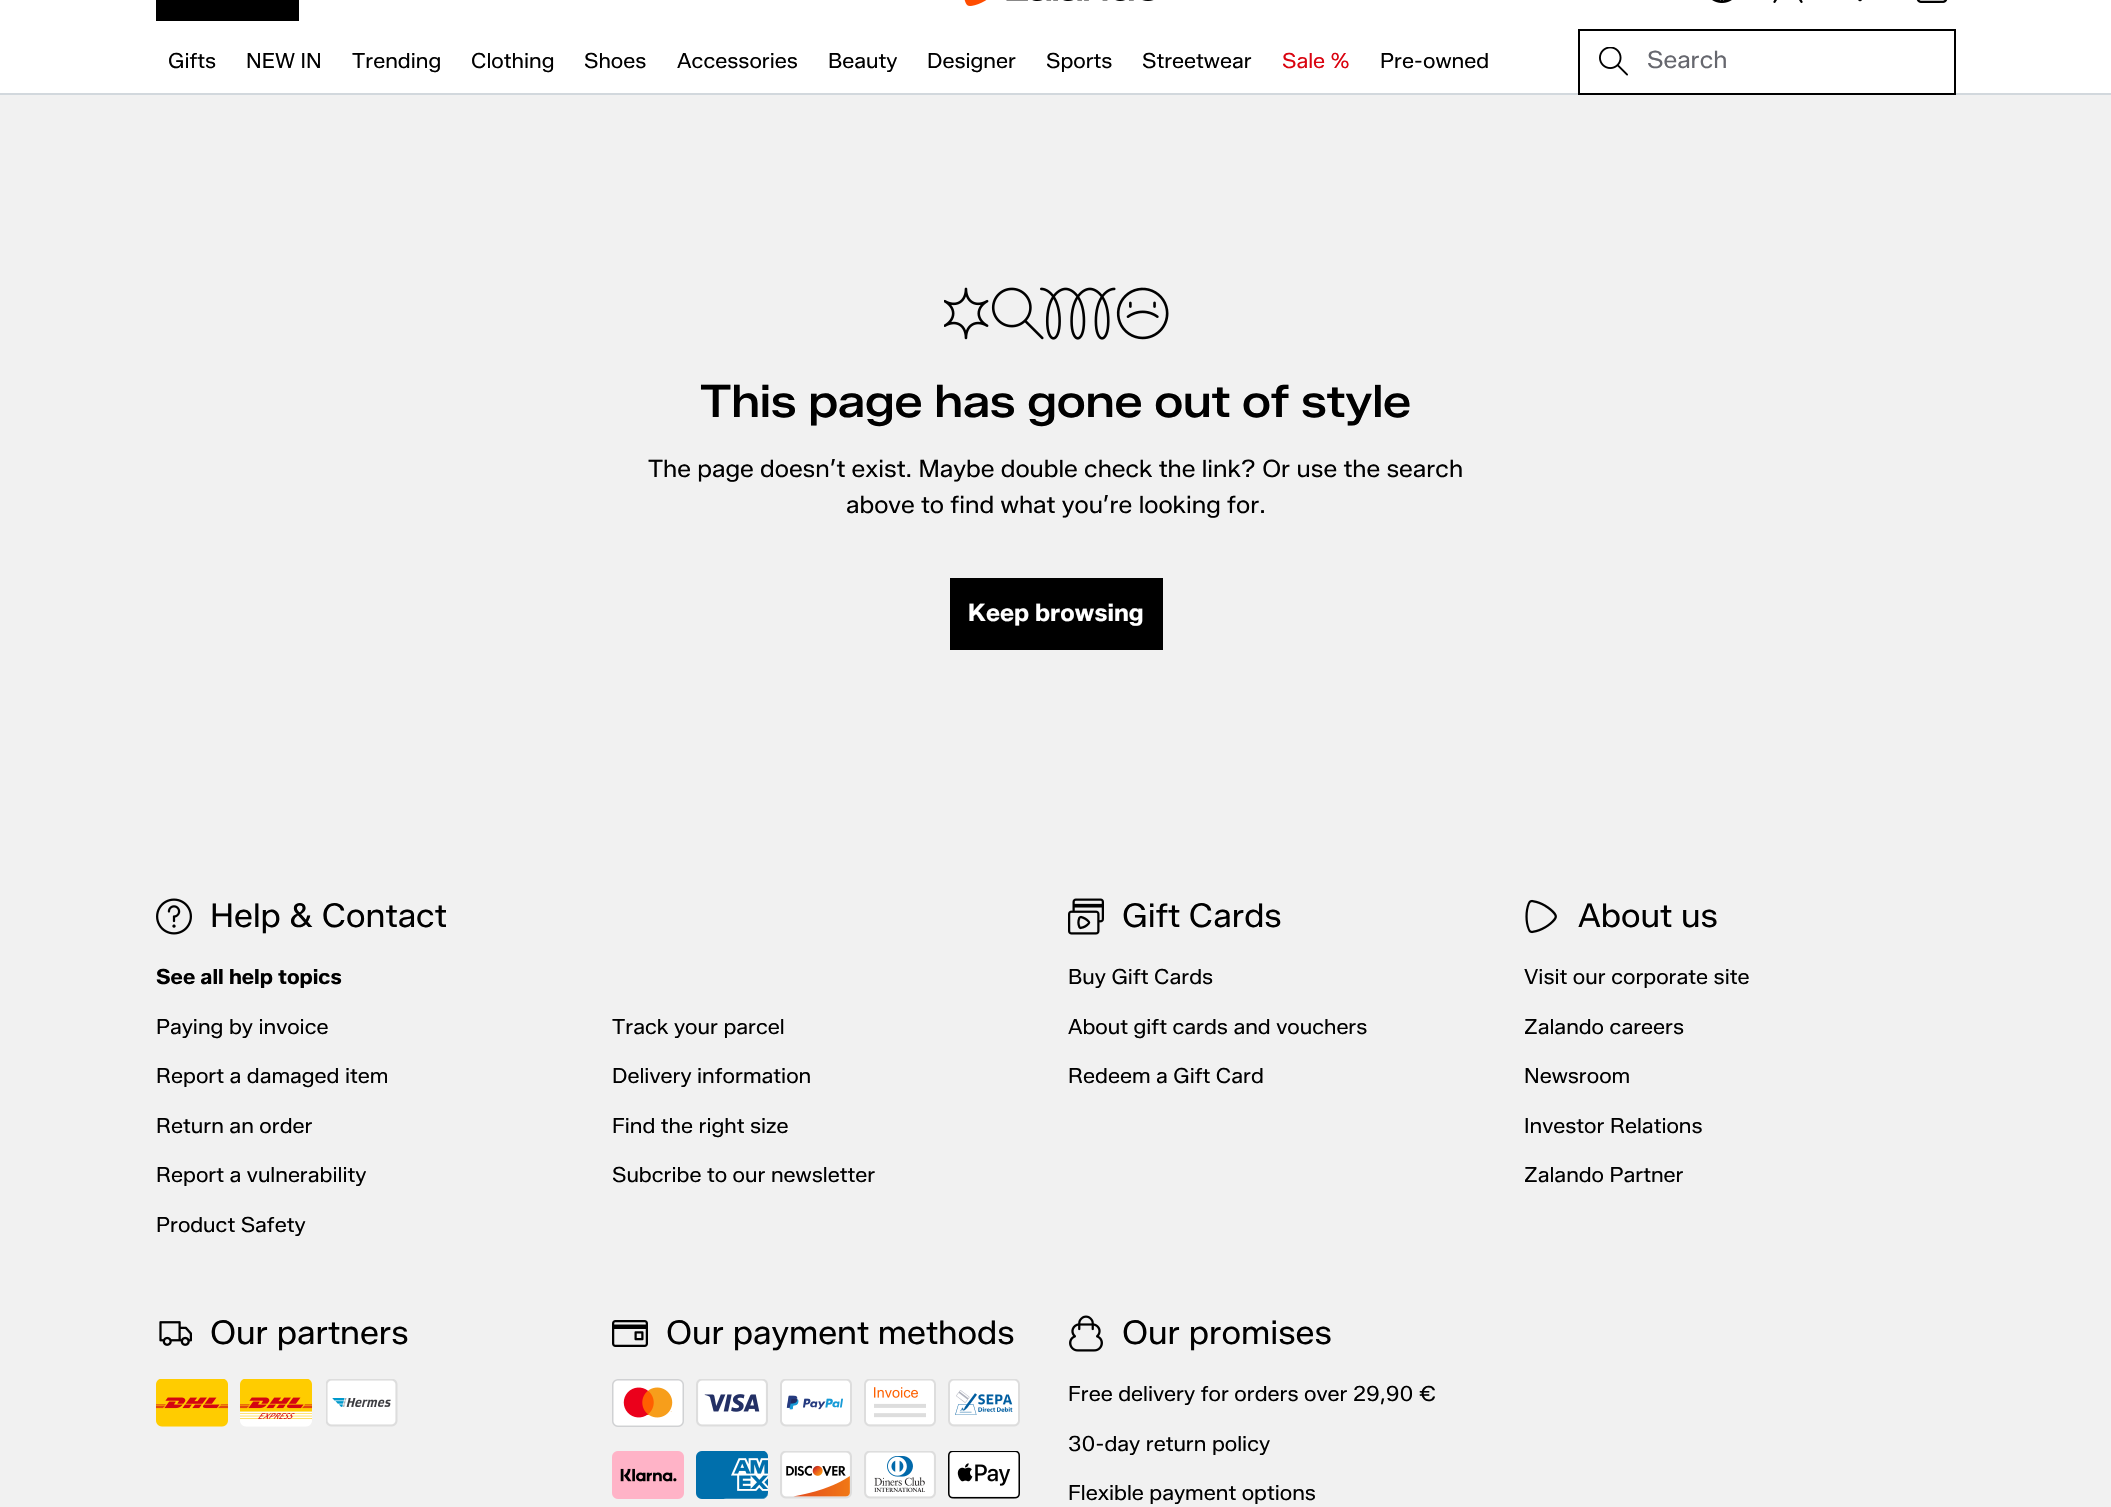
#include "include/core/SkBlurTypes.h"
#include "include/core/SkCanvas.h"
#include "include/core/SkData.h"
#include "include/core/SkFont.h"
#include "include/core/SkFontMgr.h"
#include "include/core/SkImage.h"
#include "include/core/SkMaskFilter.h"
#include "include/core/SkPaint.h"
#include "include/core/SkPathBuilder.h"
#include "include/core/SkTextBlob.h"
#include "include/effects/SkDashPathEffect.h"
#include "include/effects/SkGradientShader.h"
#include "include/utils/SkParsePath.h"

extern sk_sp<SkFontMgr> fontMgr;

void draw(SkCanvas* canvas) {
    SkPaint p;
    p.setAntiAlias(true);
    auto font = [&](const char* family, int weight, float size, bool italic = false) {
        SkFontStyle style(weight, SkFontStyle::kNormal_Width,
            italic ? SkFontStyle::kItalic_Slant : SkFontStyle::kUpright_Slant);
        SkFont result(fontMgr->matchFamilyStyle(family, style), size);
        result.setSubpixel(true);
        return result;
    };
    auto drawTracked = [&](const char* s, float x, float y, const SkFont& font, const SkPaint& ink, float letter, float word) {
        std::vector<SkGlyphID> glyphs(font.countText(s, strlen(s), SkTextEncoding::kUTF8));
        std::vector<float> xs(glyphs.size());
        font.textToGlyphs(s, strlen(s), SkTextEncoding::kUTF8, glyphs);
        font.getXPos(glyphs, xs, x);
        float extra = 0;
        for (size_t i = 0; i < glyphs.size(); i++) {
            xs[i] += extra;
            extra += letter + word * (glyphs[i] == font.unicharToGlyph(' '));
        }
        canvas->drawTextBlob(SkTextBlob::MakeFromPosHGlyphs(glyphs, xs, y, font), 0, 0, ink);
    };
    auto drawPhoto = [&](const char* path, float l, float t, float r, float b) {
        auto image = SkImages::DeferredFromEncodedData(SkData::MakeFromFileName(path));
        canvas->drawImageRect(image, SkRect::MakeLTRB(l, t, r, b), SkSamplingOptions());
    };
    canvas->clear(0xFFFFFFFF);
    p.setColor(0xFF000000);
    canvas->drawRect(SkRect::MakeLTRB(156, 0, 299, 21), p);
    drawPhoto("media/1.png", 964, 0, 1154, 6);
    drawPhoto("media/2.png", 1712, 0, 1732, 3);
    drawPhoto("media/3.png", 1773, 0, 1803, 3);
    drawPhoto("media/4.png", 1858, 0, 1862, 2);
    drawPhoto("media/5.png", 1916, 0, 1948, 3);
    auto font1 = font("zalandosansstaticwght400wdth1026", 400, 21);
    {
        const struct { const char* s; float x, y; } items[] = {
            {"Gifts", 168, 68},
            {"NEW IN", 246, 68},
            {"Trending", 352, 68},
            {"Clothing", 471, 68},
            {"Shoes", 584, 68},
            {"Accessories", 677, 68},
            {"Beauty", 828, 68},
            {"Designer", 927, 68},
            {"Sports", 1046, 68},
            {"Streetwear", 1142, 68},
        };
        for (auto [s, x, y] : items) {
            canvas->drawString(s, x, y, font1, p);
        }
    }
    p.setColor(0xFFDA0410);
    canvas->drawString("Sale %", 1282, 68, font1, p);
    p.setColor(0xFF000000);
    canvas->drawString("Pre-owned", 1380, 68, font1, p);
    p.setColor(0xFFD2D8DD);
    canvas->drawRect(SkRect::MakeLTRB(0, 93, 2111, 95), p);
    p.setStyle(SkPaint::kStroke_Style);
    p.setStrokeWidth(2);
    p.setColor(0xFF000000);
    canvas->drawRect(SkRect::MakeLTRB(1579, 30, 1955, 94), p);
    drawPhoto("media/6.png", 1599, 47, 1628, 76);
    auto font2 = font("zalandosansstaticwght400wdth1026", 400, 24);
    p.setStyle(SkPaint::kFill_Style);
    p.setColor(0xFF66676E);
    canvas->drawString("Search", 1647, 68, font2, p);
    p.setColor(0xFFF1F1F1);
    canvas->drawRect(SkRect::MakeLTRB(0, 95, 2111, 1507), p);
    drawPhoto("media/7.png", 944, 287, 1169, 340);
    auto font3 = font("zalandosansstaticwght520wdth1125", 500, 45);
    p.setColor(0xFF000000);
    drawTracked("This page has gone out of style", 700, 417, font3, p, -0.2f, 0);
    canvas->drawString("The page doesn’t exist. Maybe double check the link? Or use the search", 648, 477, font2, p);
    canvas->drawString("above to find what you’re looking for.", 846, 513, font2, p);
    canvas->drawRect(SkRect::MakeLTRB(950, 578, 1163, 650), p);
    auto font4 = font("Zalando Sans", 600, 24);
    p.setColor(0xFFFFFFFF);
    canvas->drawString("Keep browsing", 968, 621, font4, p);
    drawPhoto("media/8.png", 156, 898, 192, 935);
    auto font5 = font("zalandosansstaticwght400wdth1026", 400, 33);
    p.setColor(0xFF000000);
    canvas->drawString("Help & Contact", 210, 927, font5, p);
    auto font6 = font("Zalando Sans", 600, 21);
    canvas->drawString("See all help topics", 156, 984, font6, p);
    {
        const struct { const char* s; float x, y; } items[] = {
            {"Paying by invoice", 156, 1034},
            {"Track your parcel", 612, 1034},
            {"Report a damaged item", 156, 1083},
            {"Delivery information", 612, 1083},
            {"Return an order", 156, 1133},
            {"Find the right size", 612, 1133},
            {"Report a vulnerability", 156, 1182},
            {"Subcribe to our newsletter", 612, 1182},
            {"Product Safety", 156, 1232},
        };
        for (auto [s, x, y] : items) {
            canvas->drawString(s, x, y, font1, p);
        }
    }
    drawPhoto("media/9.png", 1068, 898, 1104, 935);
    canvas->drawString("Gift Cards", 1122, 927, font5, p);
    {
        const struct { const char* s; float x, y; } items[] = {
            {"Buy Gift Cards", 1068, 984},
            {"About gift cards and vouchers", 1068, 1034},
            {"Redeem a Gift Card", 1068, 1083},
        };
        for (auto [s, x, y] : items) {
            canvas->drawString(s, x, y, font1, p);
        }
    }
    drawPhoto("media/10.png", 1525, 899, 1557, 934);
    canvas->drawString("About us", 1578, 927, font5, p);
    {
        const struct { const char* s; float x, y; } items[] = {
            {"Visit our corporate site", 1524, 984},
            {"Zalando careers", 1524, 1034},
            {"Newsroom", 1524, 1083},
            {"Investor Relations", 1524, 1133},
            {"Zalando Partner", 1524, 1182},
        };
        for (auto [s, x, y] : items) {
            canvas->drawString(s, x, y, font1, p);
        }
    }
    drawPhoto("media/11.png", 159, 1321, 192, 1346);
    canvas->drawString("Our partners", 210, 1344, font5, p);
    drawPhoto("media/12.png", 156, 1379, 228, 1427);
    drawPhoto("media/13.png", 240, 1379, 312, 1427);
    drawPhoto("media/14.png", 326, 1379, 398, 1427);
    drawPhoto("media/15.png", 612, 1320, 648, 1347);
    canvas->drawString("Our payment methods", 666, 1344, font5, p);
    drawPhoto("media/16.png", 612, 1379, 684, 1427);
    drawPhoto("media/17.png", 696, 1379, 768, 1427);
    drawPhoto("media/18.png", 780, 1379, 852, 1427);
    drawPhoto("media/19.png", 864, 1379, 936, 1427);
    drawPhoto("media/20.png", 948, 1379, 1020, 1427);
    drawPhoto("media/21.png", 612, 1451, 684, 1499);
    drawPhoto("media/22.png", 696, 1451, 768, 1499);
    drawPhoto("media/23.png", 780, 1451, 852, 1499);
    drawPhoto("media/24.png", 864, 1451, 936, 1499);
    drawPhoto("media/25.png", 948, 1451, 1020, 1499);
    drawPhoto("media/26.png", 1069, 1315, 1103, 1352);
    canvas->drawString("Our promises", 1122, 1344, font5, p);
    {
        const struct { const char* s; float x, y; } items[] = {
            {"Free delivery for orders over 29,90 €", 1068, 1401},
            {"30-day return policy", 1068, 1451},
            {"Flexible payment options", 1068, 1500},
        };
        for (auto [s, x, y] : items) {
            canvas->drawString(s, x, y, font1, p);
        }
    }
}
